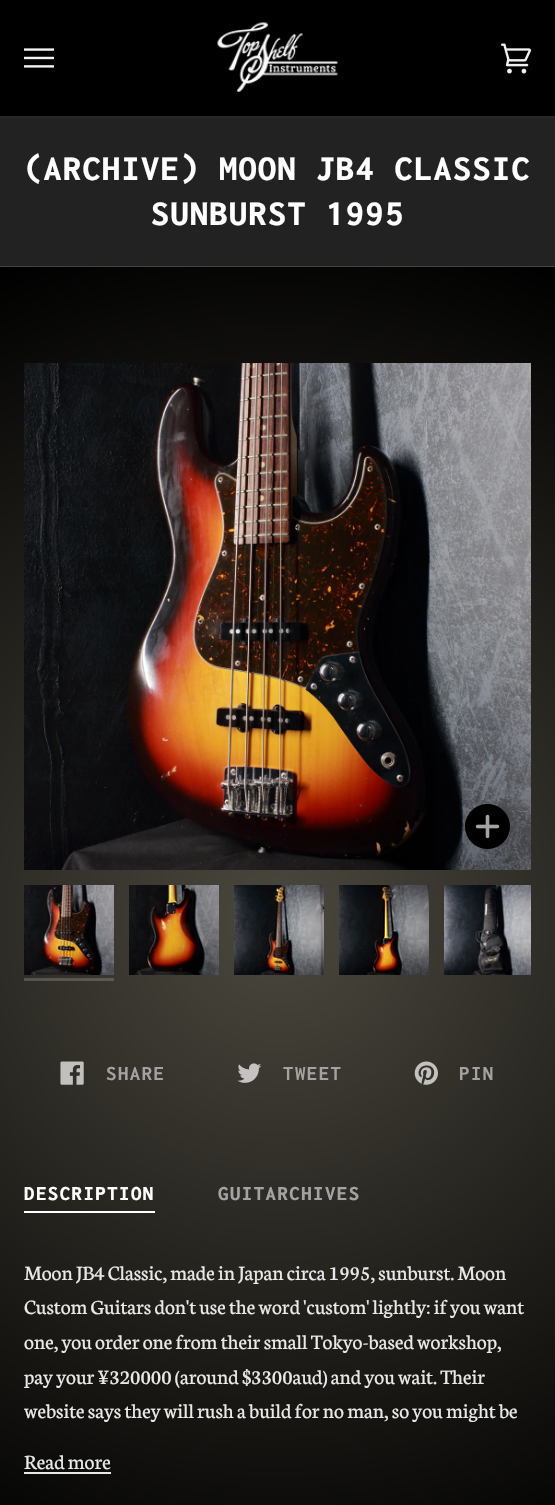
#include "include/core/SkBlurTypes.h"
#include "include/core/SkCanvas.h"
#include "include/core/SkData.h"
#include "include/core/SkFont.h"
#include "include/core/SkFontMgr.h"
#include "include/core/SkImage.h"
#include "include/core/SkMaskFilter.h"
#include "include/core/SkPaint.h"
#include "include/core/SkPathBuilder.h"
#include "include/core/SkTextBlob.h"
#include "include/effects/SkDashPathEffect.h"
#include "include/effects/SkGradientShader.h"
#include "include/utils/SkParsePath.h"

extern sk_sp<SkFontMgr> fontMgr;

void draw(SkCanvas* canvas) {
    SkPaint p;
    p.setAntiAlias(true);
    auto font = [&](const char* family, int weight, float size, bool italic = false) {
        SkFontStyle style(weight, SkFontStyle::kNormal_Width,
            italic ? SkFontStyle::kItalic_Slant : SkFontStyle::kUpright_Slant);
        SkFont result(fontMgr->matchFamilyStyle(family, style), size);
        result.setSubpixel(true);
        return result;
    };
    auto drawTracked = [&](const char* s, float x, float y, const SkFont& font, const SkPaint& ink, float letter, float word) {
        std::vector<SkGlyphID> glyphs(font.countText(s, strlen(s), SkTextEncoding::kUTF8));
        std::vector<float> xs(glyphs.size());
        font.textToGlyphs(s, strlen(s), SkTextEncoding::kUTF8, glyphs);
        font.getXPos(glyphs, xs, x);
        float extra = 0;
        for (size_t i = 0; i < glyphs.size(); i++) {
            xs[i] += extra;
            extra += letter + word * (glyphs[i] == font.unicharToGlyph(' '));
        }
        canvas->drawTextBlob(SkTextBlob::MakeFromPosHGlyphs(glyphs, xs, y, font), 0, 0, ink);
    };
    auto drawPhoto = [&](const char* path, float l, float t, float r, float b) {
        auto image = SkImages::DeferredFromEncodedData(SkData::MakeFromFileName(path));
        canvas->drawImageRect(image, SkRect::MakeLTRB(l, t, r, b), SkSamplingOptions());
    };
    canvas->clear(0xFF222222);
    p.setColor(0xFF000000);
    canvas->drawRect(SkRect::MakeLTRB(0, 0, 555, 116), p);
    p.setColor(0xFF282828);
    canvas->drawRect(SkRect::MakeLTRB(0, 116, 555, 118), p);
    drawPhoto("media/1.png", 24, 48, 54, 68);
    drawPhoto("media/2.png", 217, 22, 338, 92);
    drawPhoto("media/3.png", 501, 43, 531, 74);
    p.setColor(0xFF444444);
    canvas->drawRect(SkRect::MakeLTRB(0, 266, 555, 267), p);
    auto font1 = font("Inconsolata", 800, 36);
    p.setColor(0xFFFFFFFF);
    drawTracked("(ARCHIVE) MOON JB4 CLASSIC", 24, 180, font1, p, 1.5f, 0);
    drawTracked("SUNBURST 1995", 151, 225, font1, p, 1.5f, 0);
    {
        const SkColor colors[] = {0xFF000000, 0xFF4B483E, 0xFF000000};
        const float stops[] = {0, 0, 1};
        p.setShader(SkGradientShader::MakeRadial({278, 920}, 710, colors, stops, 3, SkTileMode::kClamp));
        p.setAlpha(255);
    }
    canvas->drawRect(SkRect::MakeLTRB(0, 267, 555, 1505), p);
    {
        const SkColor colors[] = {0xFF2F2F2F, 0xFF6B6860, 0xFF2F2F2F};
        const float stops[] = {0, 0, 1};
        p.setShader(SkGradientShader::MakeRadial({278, 920}, 710, colors, stops, 3, SkTileMode::kClamp));
        p.setAlpha(255);
    }
    canvas->drawRect(SkRect::MakeLTRB(24, 978, 114, 981), p);
    drawPhoto("media/4.png", 24, 363, 531, 870);
    drawPhoto("media/5.png", 465, 804, 510, 849);
    drawPhoto("media/6.png", 24, 885, 114, 975);
    drawPhoto("media/7.png", 129, 885, 219, 975);
    drawPhoto("media/8.png", 234, 885, 324, 975);
    drawPhoto("media/9.png", 339, 885, 429, 975);
    drawPhoto("media/10.png", 444, 885, 531, 975);
    drawPhoto("media/11.png", 60, 1061, 84, 1085);
    auto font2 = font("Inconsolata", 700, 20.75f);
    p.setShader(nullptr);
    p.setColor(0xFFA3A3A3);
    drawTracked("SHARE", 106, 1080, font2, p, 1.5f, 0);
    drawPhoto("media/12.png", 237, 1063, 261, 1083);
    drawTracked("TWEET", 283, 1080, font2, p, 1.5f, 0);
    drawPhoto("media/13.png", 414, 1061, 438, 1085);
    drawTracked("PIN", 459, 1080, font2, p, 1.5f, 0);
    p.setColor(0xFFFFFFFF);
    canvas->drawRect(SkRect::MakeLTRB(24, 1211, 155, 1213), p);
    auto font3 = font("Inconsolata", 800, 20.75f);
    drawTracked("DESCRIPTION", 24, 1200, font3, p, 1.5f, 0);
    p.setColor(0xFFA3A3A3);
    drawTracked("GUITARCHIVES", 218, 1200, font3, p, 1.5f, 0);
    auto font4 = font("Neuton", 400, 21.7f);
    p.setColor(0xFFE9E9E9);
    {
        const struct { const char* s; float x, y; } items[] = {
            {"Moon JB4 Classic, made in Japan circa 1995, sunburst. Moon", 24, 1280},
            {"Custom Guitars don't use the word 'custom' lightly: if you want", 24, 1314},
            {"one, you order one from their small Tokyo-based workshop,", 24, 1349},
            {"pay your ¥320000 (around $3300aud) and you wait. Their", 24, 1384},
            {"website says they will rush a build for no man, so you might be", 24, 1418},
            {"Read more", 24, 1469},
        };
        for (auto [s, x, y] : items) {
            canvas->drawString(s, x, y, font4, p);
        }
    }
    canvas->drawRect(SkRect::MakeLTRB(24, 1472, 111, 1474), p);
}
